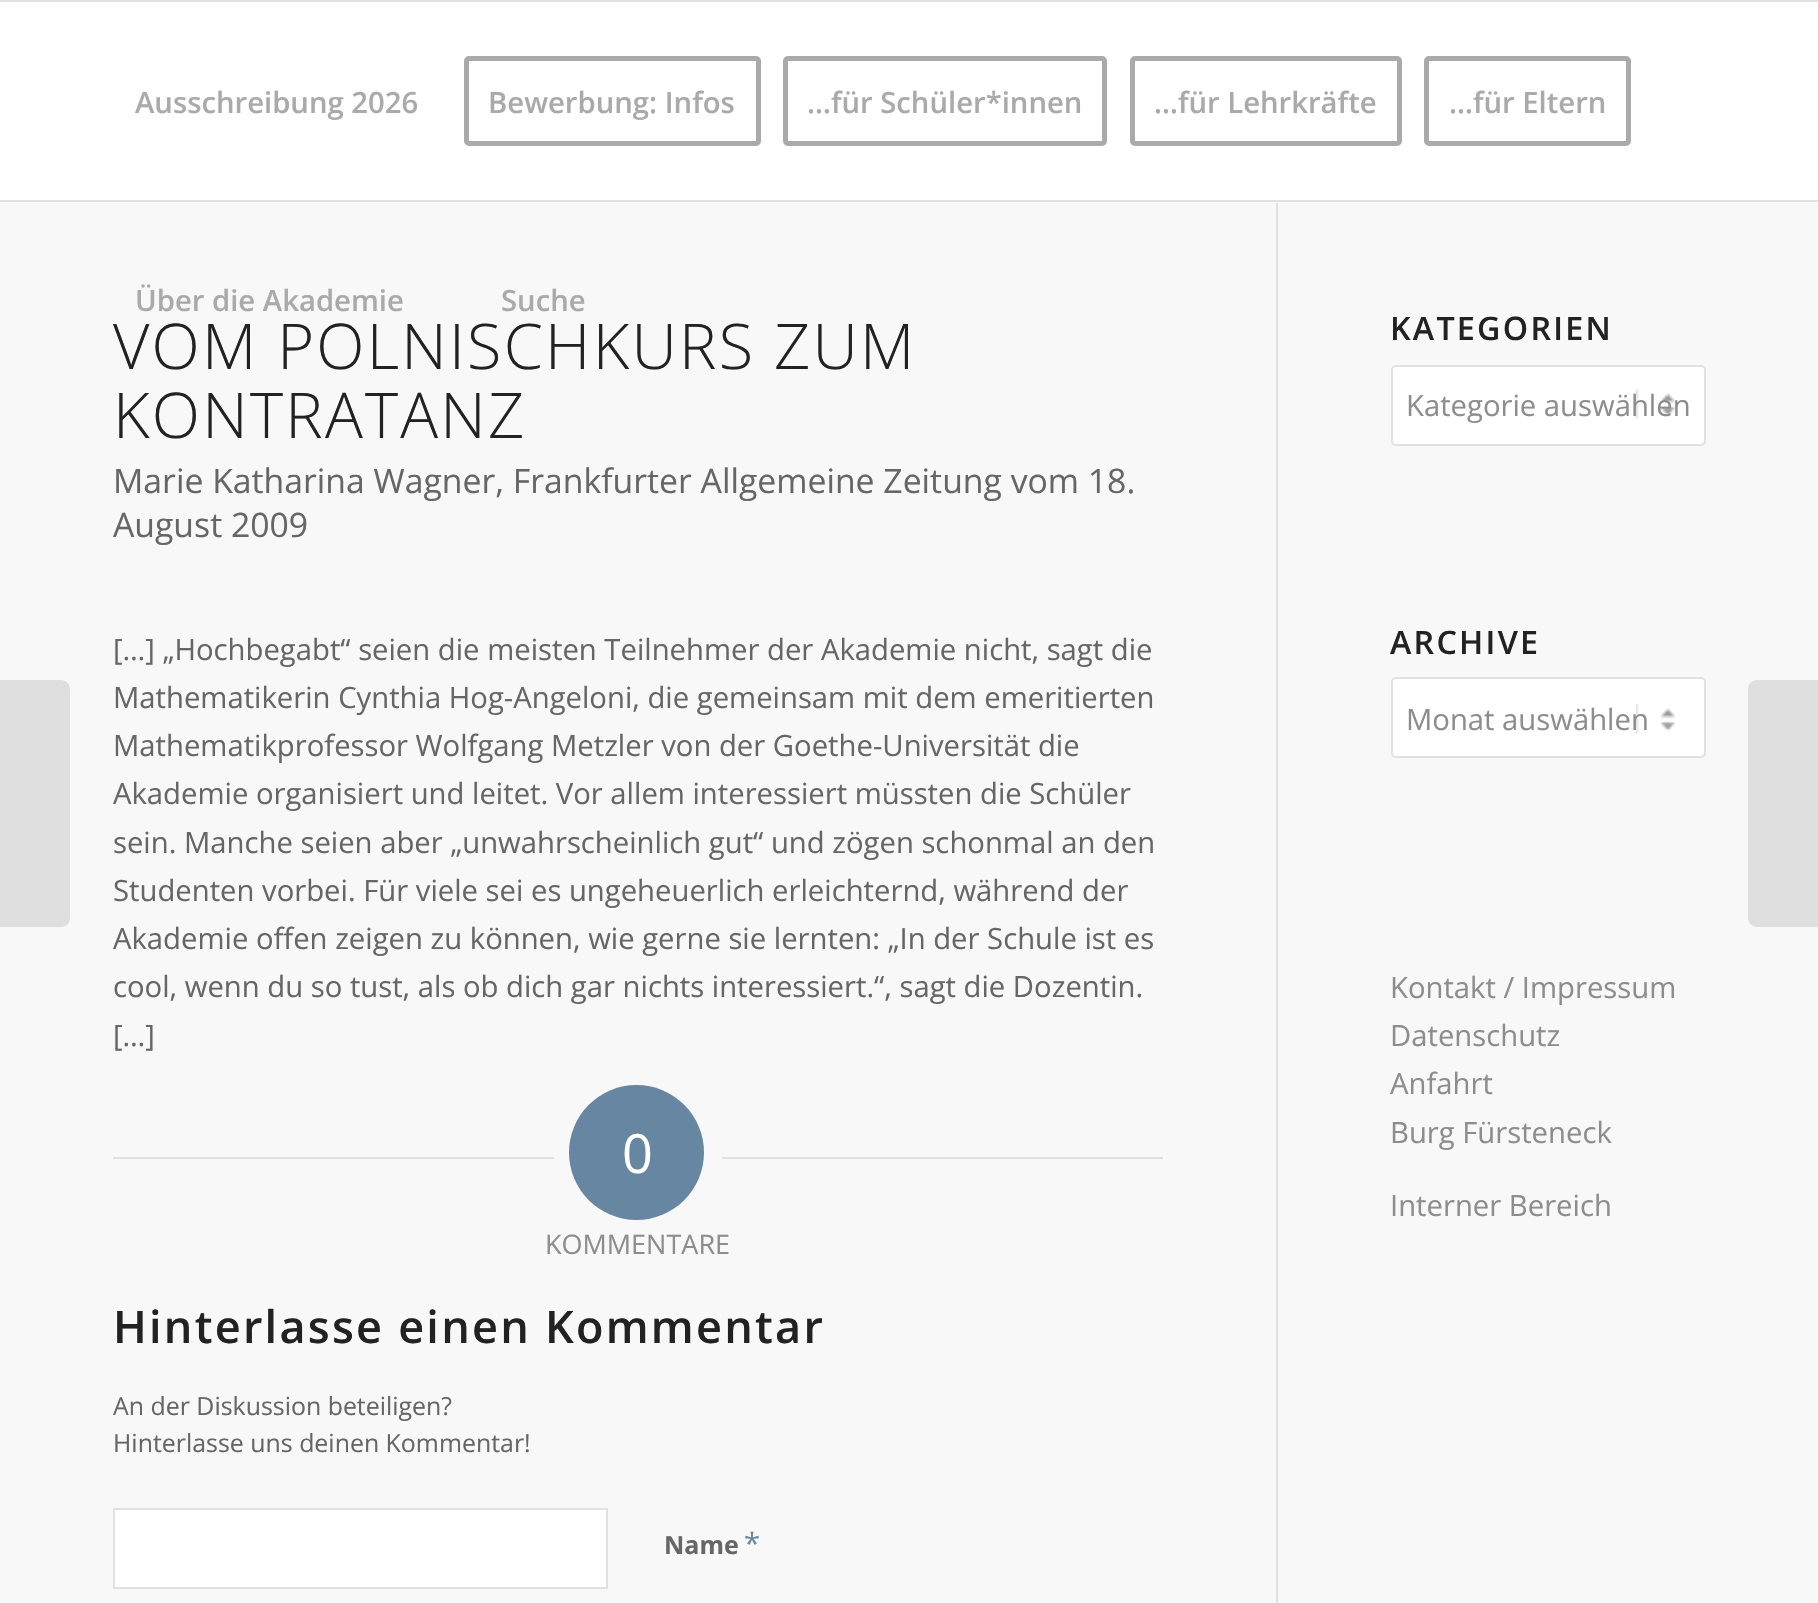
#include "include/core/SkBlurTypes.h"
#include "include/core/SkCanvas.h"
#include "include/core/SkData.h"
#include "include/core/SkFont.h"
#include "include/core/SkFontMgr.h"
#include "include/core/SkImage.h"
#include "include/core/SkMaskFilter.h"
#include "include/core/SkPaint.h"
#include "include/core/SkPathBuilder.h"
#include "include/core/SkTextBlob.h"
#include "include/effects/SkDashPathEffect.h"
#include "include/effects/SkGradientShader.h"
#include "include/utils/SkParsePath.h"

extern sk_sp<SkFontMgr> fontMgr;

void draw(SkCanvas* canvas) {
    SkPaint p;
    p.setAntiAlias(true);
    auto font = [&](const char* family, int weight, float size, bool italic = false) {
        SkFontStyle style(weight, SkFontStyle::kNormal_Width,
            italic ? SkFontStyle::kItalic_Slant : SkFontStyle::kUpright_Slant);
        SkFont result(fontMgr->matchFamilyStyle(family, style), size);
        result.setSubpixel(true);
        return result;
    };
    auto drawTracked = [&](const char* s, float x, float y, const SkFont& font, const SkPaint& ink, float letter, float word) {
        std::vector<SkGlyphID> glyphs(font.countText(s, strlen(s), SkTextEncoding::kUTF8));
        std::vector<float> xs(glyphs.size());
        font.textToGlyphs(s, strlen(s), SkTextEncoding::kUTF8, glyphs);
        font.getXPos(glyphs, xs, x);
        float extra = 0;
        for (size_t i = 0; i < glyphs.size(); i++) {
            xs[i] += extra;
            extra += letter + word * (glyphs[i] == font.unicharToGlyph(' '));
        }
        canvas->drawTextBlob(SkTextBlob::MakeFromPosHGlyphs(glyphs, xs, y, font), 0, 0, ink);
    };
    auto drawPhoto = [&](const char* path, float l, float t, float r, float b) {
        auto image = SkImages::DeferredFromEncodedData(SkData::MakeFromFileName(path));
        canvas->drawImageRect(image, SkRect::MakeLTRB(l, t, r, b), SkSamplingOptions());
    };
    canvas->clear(0xFFF8F8F8);
    {
        const struct { float l, t, r, b; SkColor color; } items[] = {
            {1276, 198, 1278, 1603, 0xFFE1E1E1},
            {0, 2, 1818, 203, 0xFFFFFFFF},
            {0, 0, 1818, 2, 0xFFE1E1E1},
            {0, 200, 1818, 202, 0xFFE1E1E1},
        };
        for (auto [l, t, r, b, color] : items) {
            p.setColor(color);
            canvas->drawRect(SkRect::MakeLTRB(l, t, r, b), p);
        }
    }
    auto font1 = font("Open Sans", 600, 29.25f);
    p.setColor(0xFFAAAAAA);
    canvas->drawString("Ausschreibung 2026", 135, 113, font1, p);
    p.setStyle(SkPaint::kStroke_Style);
    p.setStrokeWidth(5);
    canvas->drawRoundRect(SkRect::MakeLTRB(466.5f, 58.5f, 758.5f, 143.5f), 2.5f, 2.5f, p);
    p.setStyle(SkPaint::kFill_Style);
    canvas->drawString("Bewerbung: Infos", 488, 113, font1, p);
    p.setStyle(SkPaint::kStroke_Style);
    canvas->drawRoundRect(SkRect::MakeLTRB(785.5f, 58.5f, 1104.5f, 143.5f), 2.5f, 2.5f, p);
    p.setStyle(SkPaint::kFill_Style);
    canvas->drawString("…für Schüler*innen", 807, 113, font1, p);
    p.setStyle(SkPaint::kStroke_Style);
    canvas->drawRoundRect(SkRect::MakeLTRB(1132.5f, 58.5f, 1399.5f, 143.5f), 2.5f, 2.5f, p);
    p.setStyle(SkPaint::kFill_Style);
    canvas->drawString("…für Lehrkräfte", 1154, 113, font1, p);
    p.setStyle(SkPaint::kStroke_Style);
    canvas->drawRoundRect(SkRect::MakeLTRB(1426.5f, 58.5f, 1628.5f, 143.5f), 2.5f, 2.5f, p);
    p.setStyle(SkPaint::kFill_Style);
    {
        const struct { const char* s; float x, y; } items[] = {
            {"…für Eltern", 1449, 113},
            {"Über die Akademie", 135, 311},
            {"Suche", 501, 311},
        };
        for (auto [s, x, y] : items) {
            canvas->drawString(s, x, y, font1, p);
        }
    }
    p.setColor(0xFFDFDFDF);
    canvas->drawPath(SkPathBuilder().moveTo(0, 680).lineTo(61, 680).cubicTo(66, 680, 70, 684, 70, 689).lineTo(70, 918).cubicTo(70, 923, 66, 927, 61, 927).lineTo(0, 927).close().detach(), p);
    auto font2 = font("Open Sans", 300, 63);
    p.setColor(0xFF222222);
    drawTracked("VOM POLNISCHKURS ZUM", 113, 369, font2, p, 2.25f, 0);
    drawTracked("KONTRATANZ", 113, 438, font2, p, 2.25f, 0);
    auto font3 = font("Open Sans", 400, 33.75f);
    p.setColor(0xFF666666);
    canvas->drawString("Marie Katharina Wagner, Frankfurter Allgemeine Zeitung vom 18.", 113, 493, font3, p);
    canvas->drawString("August 2009", 113, 537, font3, p);
    auto font4 = font("Open Sans", 400, 29.25f);
    {
        const struct { const char* s; float x, y; } items[] = {
            {"[…] „Hochbegabt“ seien die meisten Teilnehmer der Akademie nicht, sagt die", 113, 660},
            {"Mathematikerin Cynthia Hog-Angeloni, die gemeinsam mit dem emeritierten", 113, 708},
            {"Mathematikprofessor Wolfgang Metzler von der Goethe-Universität die", 113, 756},
            {"Akademie organisiert und leitet. Vor allem interessiert müssten die Schüler", 113, 804},
            {"sein. Manche seien aber „unwahrscheinlich gut“ und zögen schonmal an den", 113, 853},
            {"Studenten vorbei. Für viele sei es ungeheuerlich erleichternd, während der", 113, 901},
            {"Akademie offen zeigen zu können, wie gerne sie lernten: „In der Schule ist es", 113, 949},
            {"cool, wenn du so tust, als ob dich gar nichts interessiert.“, sagt die Dozentin.", 113, 997},
            {"[…]", 113, 1046},
        };
        for (auto [s, x, y] : items) {
            canvas->drawString(s, x, y, font4, p);
        }
    }
    p.setColor(0xFFE1E1E1);
    canvas->drawRect(SkRect::MakeLTRB(113, 1157, 554, 1159), p);
    p.setColor(0xFF6786A1);
    canvas->drawCircle(636.5f, 1152.5f, 67.5f, p);
    auto font5 = font("Open Sans", 400, 54);
    p.setColor(0xFFFFFFFF);
    canvas->drawString("0", 622, 1173, font5, p);
    p.setColor(0xFFE1E1E1);
    canvas->drawRect(SkRect::MakeLTRB(722, 1157, 1163, 1159), p);
    auto font6 = font("Open Sans", 400, 27);
    p.setColor(0xFF8D8D8D);
    canvas->drawString("KOMMENTARE", 545, 1254, font6, p);
    auto font7 = font("Open Sans", 600, 45);
    p.setColor(0xFF222222);
    drawTracked("Hinterlasse einen Kommentar", 113, 1343, font7, p, 2.25f, 0);
    auto font8 = font("Open Sans", 400, 24.9f);
    p.setColor(0xFF666666);
    canvas->drawString("An der Diskussion beteiligen?", 113, 1415, font8, p);
    canvas->drawString("Hinterlasse uns deinen Kommentar!", 113, 1452, font8, p);
    p.setColor(0xFFFFFFFF);
    canvas->drawRect(SkRect::MakeLTRB(114, 1509, 607, 1588), p);
    p.setStyle(SkPaint::kStroke_Style);
    p.setStrokeWidth(2);
    p.setColor(0xFFE1E1E1);
    canvas->drawRect(SkRect::MakeLTRB(114, 1509, 607, 1588), p);
    auto font9 = font("Open Sans", 700, 25);
    p.setStyle(SkPaint::kFill_Style);
    p.setColor(0xFF666666);
    canvas->drawString("Name", 664, 1554, font9, p);
    p.setColor(0xFF6786A1);
    canvas->drawString("*", 744, 1554, font4, p);
    auto font10 = font("Open Sans", 600, 32.25f);
    p.setColor(0xFF222222);
    drawTracked("KATEGORIEN", 1390, 340, font10, p, 2.25f, 0);
    p.setColor(0xFFFFFFFF);
    canvas->drawRoundRect(SkRect::MakeLTRB(1391, 365, 1706, 446), 5, 5, p);
    drawPhoto("media/1.png", 1635, 389, 1676, 419);
    p.setStyle(SkPaint::kStroke_Style);
    p.setColor(0xFFE1E1E1);
    canvas->drawRoundRect(SkRect::MakeLTRB(1392, 366, 1705, 445), 4, 4, p);
    p.setStyle(SkPaint::kFill_Style);
    p.setColor(0xFF8D8D8D);
    canvas->drawString("Kategorie auswählen", 1406, 416, font4, p);
    p.setColor(0xFF222222);
    drawTracked("ARCHIVE", 1390, 654, font10, p, 2.25f, 0);
    p.setColor(0xFFFFFFFF);
    canvas->drawRoundRect(SkRect::MakeLTRB(1391, 677, 1706, 758), 5, 5, p);
    drawPhoto("media/1.png", 1635, 704, 1676, 734);
    p.setStyle(SkPaint::kStroke_Style);
    p.setColor(0xFFE1E1E1);
    canvas->drawRoundRect(SkRect::MakeLTRB(1392, 678, 1705, 757), 4, 4, p);
    p.setStyle(SkPaint::kFill_Style);
    p.setColor(0xFF8D8D8D);
    {
        const struct { const char* s; float x, y; } items[] = {
            {"Monat auswählen", 1406, 730},
            {"Kontakt / Impressum", 1390, 998},
            {"Datenschutz", 1390, 1046},
            {"Anfahrt", 1390, 1094},
            {"Burg Fürsteneck", 1390, 1143},
            {"Interner Bereich", 1390, 1216},
        };
        for (auto [s, x, y] : items) {
            canvas->drawString(s, x, y, font4, p);
        }
    }
    p.setColor(0xFFDFDFDF);
    canvas->drawPath(SkPathBuilder().moveTo(1757, 680).lineTo(1818, 680).lineTo(1818, 927).lineTo(1757, 927).cubicTo(1752, 927, 1748, 923, 1748, 918).lineTo(1748, 689).cubicTo(1748, 684, 1752, 680, 1757, 680).close().detach(), p);
}
